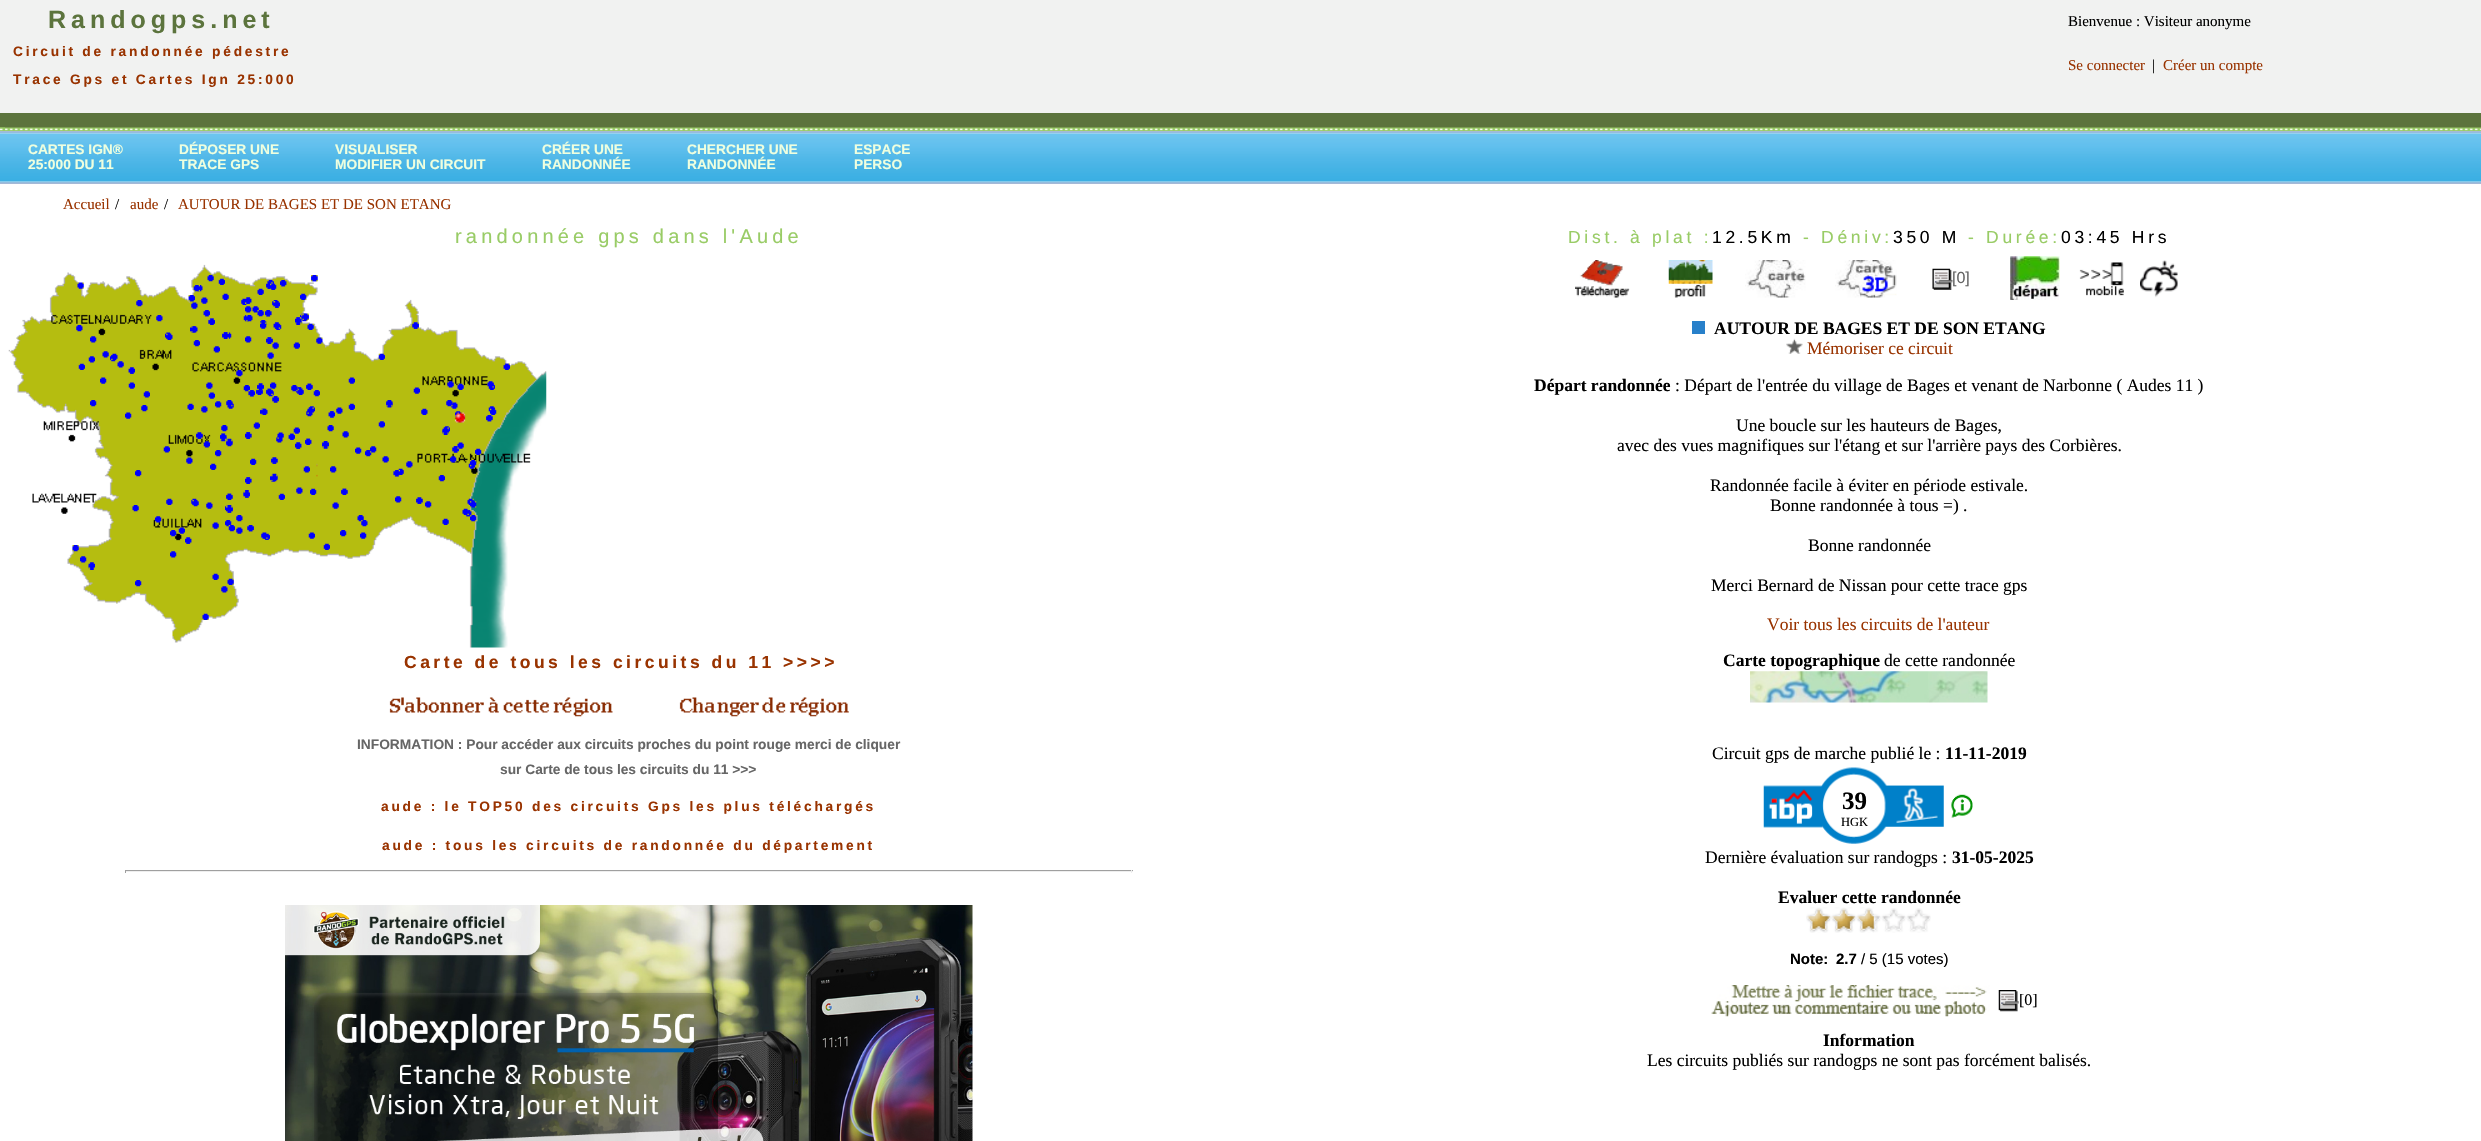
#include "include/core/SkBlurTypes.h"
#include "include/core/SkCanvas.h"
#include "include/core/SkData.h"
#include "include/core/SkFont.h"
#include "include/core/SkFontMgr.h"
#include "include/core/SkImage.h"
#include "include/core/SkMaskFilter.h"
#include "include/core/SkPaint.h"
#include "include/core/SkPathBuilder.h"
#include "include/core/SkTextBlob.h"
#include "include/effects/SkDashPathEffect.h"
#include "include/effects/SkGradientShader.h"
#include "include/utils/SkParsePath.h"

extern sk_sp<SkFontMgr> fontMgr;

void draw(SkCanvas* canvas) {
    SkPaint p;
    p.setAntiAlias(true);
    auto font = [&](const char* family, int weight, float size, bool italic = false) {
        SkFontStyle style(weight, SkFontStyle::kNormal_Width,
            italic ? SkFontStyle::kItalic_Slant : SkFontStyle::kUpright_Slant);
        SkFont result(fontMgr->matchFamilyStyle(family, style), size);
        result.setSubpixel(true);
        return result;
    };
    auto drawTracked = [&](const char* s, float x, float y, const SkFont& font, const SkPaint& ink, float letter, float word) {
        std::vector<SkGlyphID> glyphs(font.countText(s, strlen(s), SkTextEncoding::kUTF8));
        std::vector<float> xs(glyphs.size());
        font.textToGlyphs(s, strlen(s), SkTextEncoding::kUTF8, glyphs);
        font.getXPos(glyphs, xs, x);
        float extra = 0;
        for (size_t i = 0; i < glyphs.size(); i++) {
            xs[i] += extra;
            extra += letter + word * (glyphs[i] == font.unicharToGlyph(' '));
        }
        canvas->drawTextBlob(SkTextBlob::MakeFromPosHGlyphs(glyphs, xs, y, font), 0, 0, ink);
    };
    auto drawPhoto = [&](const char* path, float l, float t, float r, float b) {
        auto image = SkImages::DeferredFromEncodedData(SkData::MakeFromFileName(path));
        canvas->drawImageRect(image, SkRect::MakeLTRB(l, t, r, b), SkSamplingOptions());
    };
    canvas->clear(0xFFFFFFFF);
    p.setColor(0xFFF1F2F1);
    canvas->drawRect(SkRect::MakeLTRB(0, 0, 2481, 113), p);
    auto font1 = font("Liberation Sans", 700, 25);
    p.setColor(0xFF5C743D);
    drawTracked("Randogps.net", 48, 28, font1, p, 5, 0);
    auto font2 = font("Liberation Sans", 700, 13.75f);
    p.setColor(0xFF993300);
    drawTracked("Circuit de randonnée pédestre", 13, 56, font2, p, 2.75f, 0);
    drawTracked("Trace Gps et Cartes Ign 25:000", 13, 84, font2, p, 2.75f, 0);
    auto font3 = font("Liberation Serif", 400, 15);
    p.setColor(0xFF000000);
    canvas->drawString("Bienvenue : Visiteur anonyme", 2068, 26, font3, p);
    p.setColor(0xFF993300);
    canvas->drawString("Se connecter", 2068, 70, font3, p);
    p.setColor(0xFF000000);
    canvas->drawString("|", 2152, 70, font3, p);
    p.setColor(0xFF993300);
    canvas->drawString("Créer un compte", 2163, 70, font3, p);
    p.setColor(0xFF5C743D);
    canvas->drawRect(SkRect::MakeLTRB(0, 113, 2481, 128), p);
    drawPhoto("media/1.png", 0, 127, 2481, 131);
    drawPhoto("media/2.png", 0, 127, 5, 131);
    drawPhoto("media/3.png", 0, 131, 2481, 184);
    p.setColor(0xFFEEFFDF);
    {
        const struct { const char* s; float x, y; } items[] = {
            {"CARTES IGN®", 28, 154},
            {"25:000 DU 11", 28, 169},
            {"DÉPOSER UNE", 179, 154},
            {"TRACE GPS", 179, 169},
            {"VISUALISER", 335, 154},
            {"MODIFIER UN CIRCUIT", 335, 169},
            {"CRÉER UNE", 542, 154},
            {"RANDONNÉE", 542, 169},
            {"CHERCHER UNE", 687, 154},
            {"RANDONNÉE", 687, 169},
            {"ESPACE", 854, 154},
            {"PERSO", 854, 169},
        };
        for (auto [s, x, y] : items) {
            canvas->drawString(s, x, y, font2, p);
        }
    }
    p.setColor(0xFF993300);
    canvas->drawString("Accueil", 63, 209, font3, p);
    p.setColor(0xFF000000);
    canvas->drawString("/", 115, 209, font3, p);
    p.setColor(0xFF993300);
    canvas->drawString("aude", 130, 209, font3, p);
    p.setColor(0xFF000000);
    canvas->drawString("/", 164, 209, font3, p);
    p.setColor(0xFF993300);
    canvas->drawString("AUTOUR DE BAGES ET DE SON ETANG", 178, 209, font3, p);
    auto font4 = font("Liberation Sans", 400, 20);
    p.setColor(0xFF99CC66);
    drawTracked("randonnée gps dans l'Aude", 455, 243, font4, p, 4.2f, 0);
    drawPhoto("media/4.png", 8, 264, 547, 648);
    drawPhoto("media/5.png", 207, 275, 214, 282);
    drawPhoto("media/6.png", 311, 275, 318, 282);
    drawPhoto("media/7.png", 218, 278, 225, 285);
    drawPhoto("media/8.png", 267, 280, 274, 284);
    drawPhoto("media/9.png", 311, 275, 318, 282);
    drawPhoto("media/10.png", 267, 280, 274, 284);
    drawPhoto("media/11.png", 280, 280, 287, 287);
    drawPhoto("media/12.png", 77, 282, 84, 289);
    drawPhoto("media/13.png", 266, 282, 273, 289);
    drawPhoto("media/14.png", 281, 281, 287, 287);
    drawPhoto("media/18.png", 196, 285, 203, 292);
    drawPhoto("media/15.png", 193, 285, 200, 292);
    drawPhoto("media/16.png", 266, 282, 273, 289);
    drawPhoto("media/17.png", 270, 283, 277, 290);
    drawPhoto("media/19.png", 257, 288, 264, 295);
    drawPhoto("media/20.png", 188, 295, 195, 302);
    drawPhoto("media/19.png", 222, 293, 229, 300);
    drawPhoto("media/21.png", 300, 293, 307, 300);
    drawPhoto("media/22.png", 188, 295, 194, 302);
    drawPhoto("media/23.png", 201, 297, 208, 304);
    drawPhoto("media/25.png", 241, 298, 248, 305);
    drawPhoto("media/24.png", 245, 297, 252, 304);
    drawPhoto("media/18.png", 136, 300, 143, 307);
    drawPhoto("media/26.png", 245, 297, 252, 304);
    drawPhoto("media/30.png", 273, 301, 280, 308);
    drawPhoto("media/31.png", 273, 301, 279, 308);
    drawPhoto("media/27.png", 272, 300, 279, 307);
    drawPhoto("media/32.png", 273, 301, 279, 308);
    drawPhoto("media/28.png", 272, 301, 279, 307);
    drawPhoto("media/33.png", 273, 301, 279, 308);
    drawPhoto("media/29.png", 272, 301, 279, 307);
    drawPhoto("media/34.png", 273, 301, 279, 308);
    drawPhoto("media/35.png", 273, 301, 278, 306);
    drawPhoto("media/23.png", 191, 302, 198, 309);
    drawPhoto("media/36.png", 203, 310, 210, 317);
    drawPhoto("media/37.png", 245, 306, 252, 313);
    drawPhoto("media/38.png", 252, 306, 259, 313);
    drawPhoto("media/39.png", 257, 310, 264, 317);
    drawPhoto("media/40.png", 265, 310, 272, 317);
    drawPhoto("media/41.png", 273, 301, 275, 306);
    drawPhoto("media/42.png", 203, 311, 209, 317);
    drawPhoto("media/14.png", 266, 311, 272, 317);
    drawPhoto("media/43.png", 266, 311, 272, 317);
    drawPhoto("media/44.png", 300, 313, 307, 320);
    drawPhoto("media/45.png", 301, 313, 308, 320);
    drawPhoto("media/46.png", 302, 313, 309, 320);
    drawPhoto("media/18.png", 156, 315, 163, 322);
    drawPhoto("media/36.png", 243, 315, 250, 322);
    drawPhoto("media/49.png", 295, 317, 302, 324);
    drawPhoto("media/50.png", 301, 315, 308, 322);
    drawPhoto("media/47.png", 302, 313, 309, 320);
    drawPhoto("media/48.png", 246, 315, 253, 322);
    drawPhoto("media/52.png", 296, 317, 302, 324);
    drawPhoto("media/56.png", 295, 318, 302, 325);
    drawPhoto("media/51.png", 295, 317, 302, 324);
    drawPhoto("media/7.png", 208, 318, 215, 325);
    drawPhoto("media/53.png", 208, 318, 214, 324);
    drawPhoto("media/54.png", 208, 318, 214, 324);
    drawPhoto("media/55.png", 208, 318, 214, 324);
    drawPhoto("media/40.png", 260, 320, 267, 327);
    drawPhoto("media/57.png", 260, 322, 267, 329);
    drawPhoto("media/58.png", 273, 322, 280, 329);
    drawPhoto("media/61.png", 275, 323, 282, 330);
    drawPhoto("media/59.png", 273, 322, 280, 329);
    drawPhoto("media/60.png", 412, 322, 419, 329);
    drawPhoto("media/18.png", 76, 325, 83, 332);
    drawPhoto("media/37.png", 190, 326, 197, 333);
    drawPhoto("media/62.png", 307, 323, 314, 330);
    drawPhoto("media/63.png", 412, 322, 419, 329);
    drawPhoto("media/64.png", 191, 326, 198, 333);
    drawPhoto("media/65.png", 165, 332, 172, 339);
    drawPhoto("media/66.png", 222, 332, 229, 339);
    drawPhoto("media/71.png", 225, 332, 232, 339);
    drawPhoto("media/67.png", 222, 332, 229, 339);
    drawPhoto("media/68.png", 222, 332, 229, 339);
    drawPhoto("media/69.png", 222, 332, 229, 339);
    drawPhoto("media/37.png", 90, 336, 97, 343);
    drawPhoto("media/70.png", 166, 333, 173, 340);
    drawPhoto("media/37.png", 245, 336, 252, 343);
    drawPhoto("media/23.png", 266, 337, 273, 344);
    drawPhoto("media/74.png", 272, 342, 279, 349);
    drawPhoto("media/72.png", 266, 337, 273, 344);
    drawPhoto("media/36.png", 193, 340, 200, 347);
    drawPhoto("media/30.png", 213, 346, 220, 353);
    drawPhoto("media/73.png", 266, 337, 273, 344);
    drawPhoto("media/58.png", 293, 342, 300, 349);
    drawPhoto("media/75.png", 316, 337, 323, 344);
    drawPhoto("media/38.png", 102, 351, 109, 358);
    drawPhoto("media/40.png", 110, 355, 117, 362);
    drawPhoto("media/76.png", 111, 353, 118, 360);
    drawPhoto("media/66.png", 267, 352, 274, 359);
    drawPhoto("media/77.png", 378, 353, 385, 360);
    drawPhoto("media/30.png", 88, 356, 95, 363);
    drawPhoto("media/7.png", 78, 363, 85, 370);
    drawPhoto("media/38.png", 117, 361, 124, 368);
    drawPhoto("media/78.png", 503, 363, 510, 370);
    drawPhoto("media/79.png", 503, 363, 510, 369);
    drawPhoto("media/58.png", 128, 367, 135, 374);
    drawPhoto("media/80.png", 128, 367, 134, 374);
    drawPhoto("media/81.png", 236, 370, 243, 377);
    drawPhoto("media/65.png", 100, 377, 107, 384);
    drawPhoto("media/58.png", 128, 382, 135, 389);
    drawPhoto("media/23.png", 206, 382, 213, 389);
    drawPhoto("media/94.png", 256, 388, 263, 395);
    drawPhoto("media/96.png", 256, 388, 263, 394);
    drawPhoto("media/82.png", 257, 383, 264, 390);
    drawPhoto("media/65.png", 270, 382, 277, 389);
    drawPhoto("media/58.png", 348, 377, 355, 384);
    drawPhoto("media/83.png", 447, 381, 454, 388);
    drawPhoto("media/7.png", 488, 383, 495, 390);
    drawPhoto("media/84.png", 487, 381, 494, 388);
    drawPhoto("media/97.png", 256, 388, 263, 394);
    drawPhoto("media/85.png", 257, 383, 264, 390);
    drawPhoto("media/86.png", 257, 383, 264, 390);
    drawPhoto("media/87.png", 257, 383, 263, 390);
    drawPhoto("media/88.png", 257, 383, 263, 390);
    drawPhoto("media/25.png", 306, 383, 313, 390);
    drawPhoto("media/36.png", 248, 390, 255, 397);
    drawPhoto("media/89.png", 243, 385, 250, 392);
    drawPhoto("media/23.png", 296, 387, 303, 394);
    drawPhoto("media/93.png", 296, 387, 303, 394);
    drawPhoto("media/95.png", 296, 387, 303, 394);
    drawPhoto("media/100.png", 297, 388, 304, 395);
    drawPhoto("media/90.png", 291, 385, 298, 392);
    drawPhoto("media/91.png", 306, 383, 313, 389);
    drawPhoto("media/92.png", 457, 383, 464, 390);
    drawPhoto("media/58.png", 413, 387, 420, 394);
    drawPhoto("media/38.png", 272, 396, 279, 403);
    drawPhoto("media/105.png", 272, 396, 279, 403);
    drawPhoto("media/103.png", 267, 390, 274, 397);
    drawPhoto("media/98.png", 266, 388, 273, 395);
    drawPhoto("media/99.png", 266, 388, 273, 395);
    drawPhoto("media/101.png", 248, 390, 254, 397);
    drawPhoto("media/30.png", 143, 391, 150, 398);
    drawPhoto("media/58.png", 208, 392, 215, 399);
    drawPhoto("media/102.png", 248, 390, 254, 397);
    drawPhoto("media/36.png", 313, 390, 320, 397);
    drawPhoto("media/40.png", 90, 400, 97, 407);
    drawPhoto("media/37.png", 215, 401, 222, 408);
    drawPhoto("media/66.png", 227, 402, 234, 409);
    drawPhoto("media/104.png", 226, 400, 233, 407);
    drawPhoto("media/108.png", 386, 401, 393, 408);
    drawPhoto("media/106.png", 386, 400, 393, 407);
    drawPhoto("media/23.png", 451, 402, 458, 409);
    drawPhoto("media/107.png", 446, 400, 453, 407);
    drawPhoto("media/18.png", 141, 405, 148, 412);
    drawPhoto("media/19.png", 187, 403, 194, 410);
    drawPhoto("media/108.png", 201, 406, 208, 413);
    drawPhoto("media/18.png", 306, 410, 313, 417);
    drawPhoto("media/109.png", 308, 406, 315, 413);
    drawPhoto("media/7.png", 348, 403, 355, 410);
    drawPhoto("media/30.png", 488, 406, 495, 413);
    drawPhoto("media/110.png", 260, 408, 267, 415);
    drawPhoto("media/111.png", 307, 407, 314, 414);
    drawPhoto("media/23.png", 336, 407, 343, 414);
    drawPhoto("media/112.png", 261, 408, 268, 415);
    drawPhoto("media/30.png", 328, 411, 335, 418);
    drawPhoto("media/25.png", 421, 408, 428, 415);
    drawPhoto("media/113.png", 490, 408, 497, 415);
    drawPhoto("media/65.png", 125, 412, 132, 419);
    drawPhoto("media/31.png", 328, 411, 334, 418);
    drawPhoto("media/37.png", 455, 411, 462, 418);
    drawPhoto("media/114.png", 454, 412, 466, 423);
    drawPhoto("media/18.png", 486, 415, 493, 422);
    drawPhoto("media/115.png", 486, 416, 493, 422);
    drawPhoto("media/18.png", 221, 425, 228, 432);
    drawPhoto("media/58.png", 253, 422, 260, 429);
    drawPhoto("media/7.png", 288, 433, 295, 440);
    drawPhoto("media/116.png", 293, 427, 300, 434);
    drawPhoto("media/117.png", 327, 425, 334, 432);
    drawPhoto("media/30.png", 378, 421, 385, 428);
    drawPhoto("media/30.png", 443, 426, 450, 433);
    drawPhoto("media/121.png", 442, 428, 449, 435);
    drawPhoto("media/118.png", 442, 427, 449, 434);
    drawPhoto("media/119.png", 196, 432, 203, 439);
    drawPhoto("media/120.png", 342, 431, 349, 438);
    drawPhoto("media/122.png", 196, 432, 203, 439);
    drawPhoto("media/65.png", 245, 432, 252, 439);
    drawPhoto("media/123.png", 246, 432, 252, 439);
    drawPhoto("media/124.png", 246, 432, 252, 439);
    drawPhoto("media/110.png", 220, 433, 227, 440);
    drawPhoto("media/125.png", 246, 432, 252, 438);
    drawPhoto("media/108.png", 276, 436, 283, 443);
    drawPhoto("media/126.png", 277, 432, 284, 439);
    drawPhoto("media/130.png", 226, 438, 233, 445);
    drawPhoto("media/128.png", 221, 433, 227, 439);
    drawPhoto("media/133.png", 226, 440, 233, 447);
    drawPhoto("media/129.png", 220, 435, 227, 442);
    drawPhoto("media/127.png", 220, 433, 227, 440);
    drawPhoto("media/131.png", 288, 433, 294, 439);
    drawPhoto("media/110.png", 305, 438, 312, 445);
    drawPhoto("media/132.png", 203, 441, 210, 448);
    drawPhoto("media/134.png", 306, 438, 312, 444);
    drawPhoto("media/38.png", 322, 441, 329, 448);
    drawPhoto("media/105.png", 322, 441, 329, 448);
    drawPhoto("media/65.png", 295, 442, 302, 449);
    drawPhoto("media/136.png", 322, 442, 329, 449);
    drawPhoto("media/135.png", 322, 441, 329, 448);
    drawPhoto("media/123.png", 296, 442, 302, 449);
    drawPhoto("media/30.png", 163, 446, 170, 453);
    drawPhoto("media/137.png", 322, 442, 329, 448);
    drawPhoto("media/40.png", 365, 450, 372, 457);
    drawPhoto("media/138.png", 370, 446, 377, 453);
    drawPhoto("media/38.png", 452, 446, 459, 453);
    drawPhoto("media/105.png", 452, 446, 459, 453);
    drawPhoto("media/139.png", 457, 442, 464, 449);
    drawPhoto("media/40.png", 215, 450, 222, 457);
    drawPhoto("media/65.png", 355, 447, 362, 454);
    drawPhoto("media/140.png", 475, 448, 482, 455);
    drawPhoto("media/23.png", 186, 457, 193, 464);
    drawPhoto("media/23.png", 271, 457, 278, 464);
    drawPhoto("media/120.png", 382, 456, 389, 463);
    drawPhoto("media/141.png", 450, 456, 457, 463);
    drawPhoto("media/110.png", 250, 458, 257, 465);
    drawPhoto("media/93.png", 271, 457, 278, 464);
    drawPhoto("media/108.png", 406, 461, 413, 468);
    drawPhoto("media/144.png", 468, 462, 475, 469);
    drawPhoto("media/142.png", 470, 460, 477, 467);
    drawPhoto("media/40.png", 135, 470, 142, 477);
    drawPhoto("media/110.png", 210, 463, 217, 470);
    drawPhoto("media/30.png", 303, 466, 310, 473);
    drawPhoto("media/37.png", 330, 466, 337, 473);
    drawPhoto("media/36.png", 393, 470, 400, 477);
    drawPhoto("media/42.png", 393, 471, 399, 477);
    drawPhoto("media/143.png", 397, 468, 404, 475);
    drawPhoto("media/145.png", 393, 470, 400, 477);
    drawPhoto("media/40.png", 270, 475, 277, 482);
    drawPhoto("media/76.png", 271, 473, 278, 480);
    drawPhoto("media/148.png", 271, 481, 277, 482);
    drawPhoto("media/149.png", 271, 481, 277, 482);
    drawPhoto("media/146.png", 271, 475, 277, 482);
    drawPhoto("media/65.png", 245, 477, 252, 484);
    drawPhoto("media/147.png", 271, 475, 278, 482);
    drawPhoto("media/36.png", 438, 475, 445, 482);
    drawPhoto("media/123.png", 246, 477, 252, 484);
    drawPhoto("media/124.png", 246, 477, 252, 484);
    drawPhoto("media/23.png", 296, 487, 303, 494);
    drawPhoto("media/110.png", 310, 488, 317, 495);
    drawPhoto("media/25.png", 341, 488, 348, 495);
    drawPhoto("media/36.png", 243, 490, 250, 497);
    drawPhoto("media/91.png", 341, 488, 348, 494);
    drawPhoto("media/150.png", 243, 491, 250, 498);
    drawPhoto("media/151.png", 243, 491, 250, 498);
    drawPhoto("media/25.png", 226, 493, 233, 500);
    drawPhoto("media/152.png", 243, 491, 250, 498);
    drawPhoto("media/91.png", 226, 493, 233, 499);
    drawPhoto("media/7.png", 278, 493, 285, 500);
    drawPhoto("media/37.png", 395, 496, 402, 503);
    drawPhoto("media/23.png", 416, 497, 423, 504);
    drawPhoto("media/25.png", 166, 498, 173, 505);
    drawPhoto("media/25.png", 191, 498, 198, 505);
    drawPhoto("media/93.png", 416, 497, 423, 504);
    drawPhoto("media/153.png", 467, 498, 474, 505);
    drawPhoto("media/117.png", 132, 505, 139, 512);
    drawPhoto("media/154.png", 192, 500, 199, 507);
    drawPhoto("media/23.png", 206, 502, 213, 509);
    drawPhoto("media/108.png", 226, 506, 233, 513);
    drawPhoto("media/155.png", 225, 505, 227, 512);
    drawPhoto("media/66.png", 332, 502, 339, 509);
    drawPhoto("media/37.png", 425, 501, 432, 508);
    drawPhoto("media/156.png", 470, 501, 477, 508);
    drawPhoto("media/157.png", 226, 505, 233, 512);
    drawPhoto("media/158.png", 226, 506, 233, 513);
    drawPhoto("media/159.png", 226, 506, 233, 513);
    drawPhoto("media/161.png", 465, 510, 472, 517);
    drawPhoto("media/166.png", 470, 515, 477, 522);
    drawPhoto("media/162.png", 466, 510, 472, 517);
    drawPhoto("media/160.png", 462, 508, 469, 515);
    drawPhoto("media/163.png", 155, 516, 162, 523);
    drawPhoto("media/66.png", 212, 522, 219, 529);
    drawPhoto("media/40.png", 225, 520, 232, 527);
    drawPhoto("media/18.png", 236, 515, 243, 522);
    drawPhoto("media/164.png", 357, 515, 364, 522);
    drawPhoto("media/165.png", 361, 520, 368, 527);
    drawPhoto("media/19.png", 442, 518, 449, 525);
    drawPhoto("media/167.png", 228, 525, 235, 532);
    drawPhoto("media/117.png", 247, 525, 254, 532);
    drawPhoto("media/168.png", 170, 530, 177, 537);
    drawPhoto("media/169.png", 178, 527, 185, 534);
    drawPhoto("media/23.png", 236, 527, 243, 534);
    drawPhoto("media/170.png", 247, 526, 254, 532);
    drawPhoto("media/7.png", 263, 533, 270, 540);
    drawPhoto("media/171.png", 261, 532, 268, 539);
    drawPhoto("media/58.png", 308, 532, 315, 539);
    drawPhoto("media/40.png", 340, 530, 347, 537);
    drawPhoto("media/65.png", 360, 532, 367, 539);
    drawPhoto("media/65.png", 185, 537, 192, 544);
    drawPhoto("media/123.png", 186, 537, 192, 544);
    drawPhoto("media/172.png", 72, 545, 79, 552);
    drawPhoto("media/7.png", 323, 543, 330, 550);
    drawPhoto("media/37.png", 170, 551, 177, 558);
    drawPhoto("media/37.png", 80, 556, 87, 563);
    drawPhoto("media/7.png", 88, 563, 95, 570);
    drawPhoto("media/173.png", 88, 562, 95, 569);
    drawPhoto("media/174.png", 88, 562, 95, 569);
    drawPhoto("media/19.png", 212, 573, 219, 580);
    drawPhoto("media/40.png", 135, 580, 142, 587);
    drawPhoto("media/175.png", 227, 578, 234, 585);
    drawPhoto("media/108.png", 221, 586, 228, 593);
    drawPhoto("media/176.png", 202, 613, 209, 620);
    auto font5 = font("Liberation Sans", 700, 17.5f);
    p.setColor(0xFF993300);
    drawTracked("Carte de tous les circuits du 11 >>>>", 404, 668, font5, p, 3.5f, 0);
    drawPhoto("media/177.png", 389, 697, 613, 717);
    drawPhoto("media/178.png", 679, 697, 849, 717);
    p.setColor(0xFF666666);
    canvas->drawString("INFORMATION : Pour accéder aux circuits proches du point rouge merci de cliquer", 357, 749, font2, p);
    canvas->drawString("sur Carte de tous les circuits du 11 >>>", 500, 774, font2, p);
    p.setColor(0xFF993300);
    drawTracked("aude : le TOP50 des circuits Gps les plus téléchargés", 381, 811, font2, p, 2.75f, 0);
    drawTracked("aude : tous les circuits de randonnée du département", 382, 850, font2, p, 2.75f, 0);
    {
        const struct { float l, t, r, b; SkColor color; } items[] = {
            {125, 870, 1133, 871, 0xFF9F9F9F},
            {1131, 870, 1132, 873, 0xFFEEEEEE},
            {125, 871, 1133, 872, 0xFFEEEEEE},
            {125, 870, 126, 873, 0xFF9F9F9F},
        };
        for (auto [l, t, r, b, color] : items) {
            p.setColor(color);
            canvas->drawRect(SkRect::MakeLTRB(l, t, r, b), p);
        }
    }
    drawPhoto("media/179.png", 285, 905, 973, 1141);
    auto font6 = font("Liberation Sans", 400, 17.5f);
    p.setColor(0xFF99CC66);
    drawTracked("Dist. à plat :", 1568, 243, font6, p, 3.7f, 0);
    p.setColor(0xFF000000);
    drawTracked("12.5Km", 1712, 243, font6, p, 3.7f, 0);
    p.setColor(0xFF99CC66);
    drawTracked("- Déniv:", 1803, 243, font6, p, 3.7f, 0);
    p.setColor(0xFF000000);
    drawTracked("350 M", 1893, 243, font6, p, 3.7f, 0);
    p.setColor(0xFF99CC66);
    drawTracked("- Durée:", 1968, 243, font6, p, 3.7f, 0);
    p.setColor(0xFF000000);
    drawTracked("03:45 Hrs", 2061, 243, font6, p, 3.7f, 0);
    drawPhoto("media/180.png", 1575, 260, 1630, 298);
    drawPhoto("media/181.png", 1668, 260, 1713, 298);
    drawPhoto("media/182.png", 1745, 260, 1806, 298);
    drawPhoto("media/183.png", 1835, 260, 1897, 298);
    drawPhoto("media/184.png", 1932, 268, 1953, 290);
    auto font7 = font("Liberation Sans", 400, 16);
    p.setColor(0xFF666666);
    canvas->drawString("[0]", 1952, 283, font7, p);
    drawPhoto("media/185.png", 2010, 256, 2060, 300);
    drawPhoto("media/186.png", 2079, 262, 2124, 296);
    drawPhoto("media/187.png", 2140, 260, 2178, 298);
    p.setColor(0xFF2880CA);
    canvas->drawRect(SkRect::MakeLTRB(1692, 321, 1705, 334), p);
    auto font8 = font("Liberation Serif", 700, 17.5f);
    p.setColor(0xFF000000);
    canvas->drawString("AUTOUR DE BAGES ET DE SON ETANG", 1714, 334, font8, p);
    drawPhoto("media/188.png", 1786, 338, 1803, 354);
    auto font9 = font("Liberation Serif", 400, 17.5f);
    p.setColor(0xFF993300);
    canvas->drawString("Mémoriser ce circuit", 1807, 354, font9, p);
    p.setColor(0xFF000000);
    canvas->drawString("Départ randonnée", 1534, 391, font8, p);
    {
        const struct { const char* s; float x, y; } items[] = {
            {": Départ de l'entrée du village de Bages et venant de Narbonne ( Audes 11 )", 1675, 391},
            {"Une boucle sur les hauteurs de Bages,", 1736, 431},
            {"avec des vues magnifiques sur l'étang et sur l'arrière pays des Corbières.", 1617, 451},
            {"Randonnée facile à éviter en période estivale.", 1710, 491},
            {"Bonne randonnée à tous =) .", 1770, 511},
            {"Bonne randonnée", 1808, 551},
            {"Merci Bernard de Nissan pour cette trace gps", 1711, 591},
        };
        for (auto [s, x, y] : items) {
            canvas->drawString(s, x, y, font9, p);
        }
    }
    p.setColor(0xFF993300);
    canvas->drawString("Voir tous les circuits de l'auteur", 1767, 630, font9, p);
    p.setColor(0xFF000000);
    canvas->drawString("Carte topographique", 1723, 666, font8, p);
    canvas->drawString("de cette randonnée", 1884, 666, font9, p);
    drawPhoto("media/189.png", 1750, 671, 1988, 703);
    canvas->drawString("Circuit gps de marche publié le :", 1712, 759, font9, p);
    canvas->drawString("11-11-2019", 1945, 759, font8, p);
    drawPhoto("media/190.png", 1763, 767, 1944, 844);
    auto font10 = font("Liberation Serif", 700, 25);
    canvas->drawString("39", 1842, 809, font10, p);
    auto font11 = font("Liberation Serif", 400, 12.5f);
    canvas->drawString("HGK", 1841, 826, font11, p);
    drawPhoto("media/191.png", 1951, 794, 1973, 818);
    canvas->drawString("Dernière évaluation sur randogps :", 1705, 863, font9, p);
    canvas->drawString("31-05-2025", 1952, 863, font8, p);
    canvas->drawString("Evaluer cette randonnée", 1778, 903, font8, p);
    drawPhoto("media/192.png", 1806, 908, 1931, 933);
    drawPhoto("media/193.png", 1806, 907, 1874, 933);
    auto font12 = font("Liberation Sans", 700, 15);
    canvas->drawString("Note:", 1790, 964, font12, p);
    canvas->drawString("2.7", 1836, 964, font12, p);
    auto font13 = font("Liberation Sans", 400, 15);
    canvas->drawString("/ 5 (15 votes)", 1861, 964, font13, p);
    drawPhoto("media/194.png", 1711, 985, 1990, 1017);
    drawPhoto("media/195.png", 1998, 990, 2019, 1012);
    auto font14 = font("Liberation Serif", 400, 16);
    canvas->drawString("[0]", 2019, 1005, font14, p);
    canvas->drawString("Information", 1823, 1046, font8, p);
    canvas->drawString("Les circuits publiés sur randogps ne sont pas forcément balisés.", 1647, 1066, font9, p);
}
